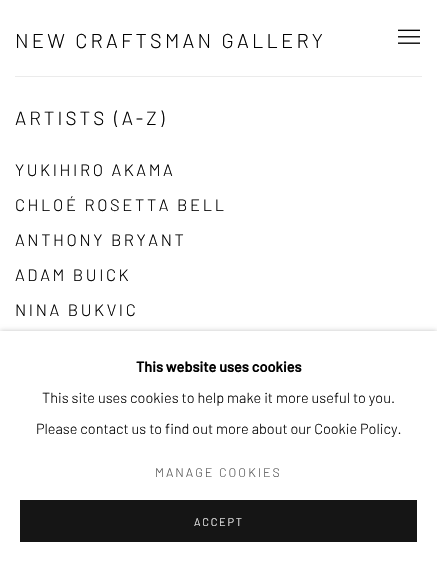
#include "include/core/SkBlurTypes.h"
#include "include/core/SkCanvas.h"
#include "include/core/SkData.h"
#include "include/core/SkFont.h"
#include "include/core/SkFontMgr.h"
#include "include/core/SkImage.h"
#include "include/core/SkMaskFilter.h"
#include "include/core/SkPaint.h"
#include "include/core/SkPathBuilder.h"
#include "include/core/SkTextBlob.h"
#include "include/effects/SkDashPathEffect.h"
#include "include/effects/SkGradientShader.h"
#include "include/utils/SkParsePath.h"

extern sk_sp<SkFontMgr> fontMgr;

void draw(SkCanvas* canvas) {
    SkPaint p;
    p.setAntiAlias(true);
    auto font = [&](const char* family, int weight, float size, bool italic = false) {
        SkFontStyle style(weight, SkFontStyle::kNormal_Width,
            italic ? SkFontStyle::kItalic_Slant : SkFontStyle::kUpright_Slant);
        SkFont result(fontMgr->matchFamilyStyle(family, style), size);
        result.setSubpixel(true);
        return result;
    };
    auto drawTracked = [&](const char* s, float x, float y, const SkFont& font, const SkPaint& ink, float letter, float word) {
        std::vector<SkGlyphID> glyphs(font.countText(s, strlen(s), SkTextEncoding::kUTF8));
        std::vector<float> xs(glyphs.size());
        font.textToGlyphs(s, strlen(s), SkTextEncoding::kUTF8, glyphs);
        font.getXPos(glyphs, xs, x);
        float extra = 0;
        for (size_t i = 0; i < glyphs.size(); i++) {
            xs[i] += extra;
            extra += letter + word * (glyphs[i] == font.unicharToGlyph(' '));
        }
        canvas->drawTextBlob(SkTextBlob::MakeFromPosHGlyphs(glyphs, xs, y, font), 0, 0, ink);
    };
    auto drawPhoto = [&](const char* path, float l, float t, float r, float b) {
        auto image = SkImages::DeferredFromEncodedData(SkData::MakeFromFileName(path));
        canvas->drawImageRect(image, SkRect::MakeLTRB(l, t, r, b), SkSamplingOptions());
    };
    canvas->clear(0xFFFFFFFF);
    p.setColor(0xFFEBEBEB);
    canvas->drawRect(SkRect::MakeLTRB(15, 76, 422, 77), p);
    auto font1 = font("Barlow", 300, 20);
    p.setColor(0xFF010101);
    drawTracked("NEW CRAFTSMAN GALLERY", 15, 48, font1, p, 3.2f, 0);
    drawPhoto("media/1.png", 398, 29, 420, 44);
    auto font2 = font("Barlow", 300, 19);
    drawTracked("ARTISTS (A-Z)", 15, 125, font2, p, 3, 0);
    auto font3 = font("Barlow", 300, 16.5f);
    {
        const struct { const char* s; float x, y; } items[] = {
            {"YUKIHIRO AKAMA", 15, 176},
            {"CHLOÉ ROSETTA BELL", 15, 211},
            {"ANTHONY BRYANT", 15, 246},
            {"ADAM BUICK", 15, 281},
            {"NINA BUKVIC", 15, 316},
        };
        for (auto [s, x, y] : items) {
            drawTracked(s, x, y, font3, p, 2.6f, 0);
        }
    }
    p.setColor(0x3B000000);
    p.setMaskFilter(SkMaskFilter::MakeBlur(kNormal_SkBlurStyle, 2.5f));
    canvas->drawRect(SkRect::MakeLTRB(0, 331, 437, 562), p);
    p.setMaskFilter(nullptr);
    p.setColor(0xFFFFFFFF);
    canvas->drawRect(SkRect::MakeLTRB(0, 331, 437, 562), p);
    auto font4 = font("Barlow", 700, 14.5f);
    p.setColor(0xFF010101);
    canvas->drawString("This website uses cookies", 136, 372, font4, p);
    auto font5 = font("Barlow", 300, 14.5f);
    canvas->drawString("This site uses cookies to help make it more useful to you.", 42, 403, font5, p);
    canvas->drawString("Please contact us to find out more about our Cookie Policy.", 36, 434, font5, p);
    auto font6 = font("Barlow", 300, 12.5f);
    p.setColor(0xFF585858);
    drawTracked("MANAGE COOKIES", 155, 477, font6, p, 2, 0);
    p.setColor(0xFF151515);
    canvas->drawRect(SkRect::MakeLTRB(20, 500, 417, 542), p);
    auto font7 = font("Barlow", 300, 11);
    p.setColor(0xFFFFFFFF);
    drawTracked("ACCEPT", 194, 526, font7, p, 1.75f, 0);
}
